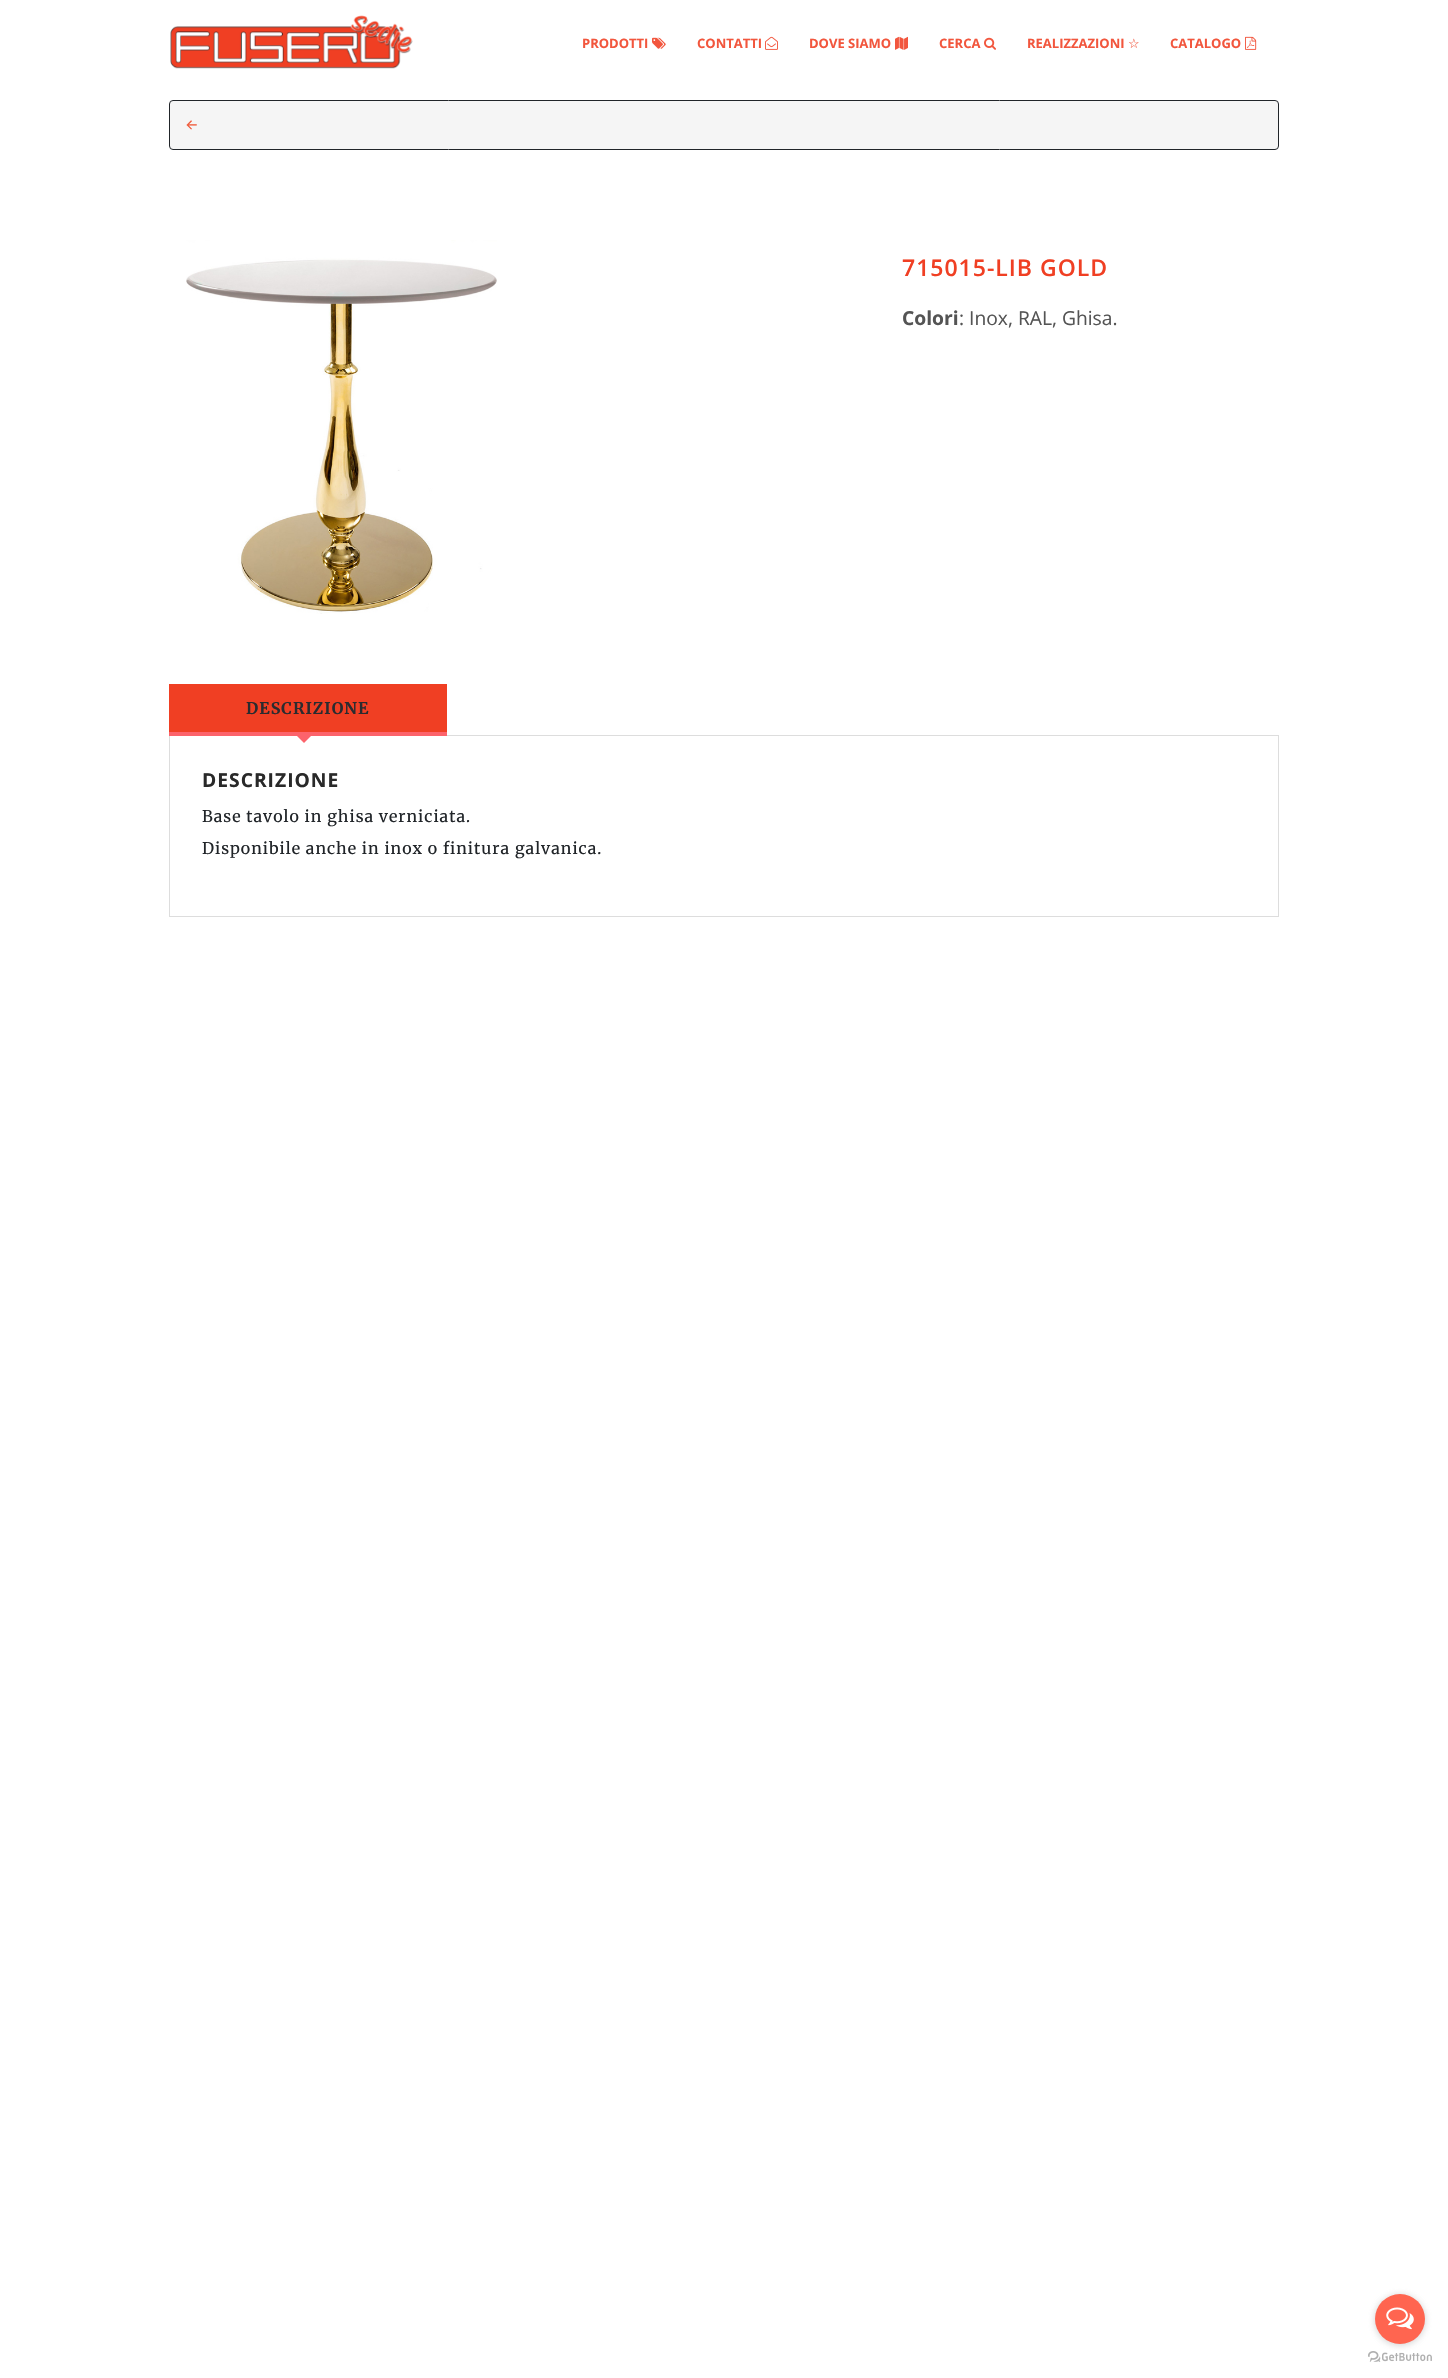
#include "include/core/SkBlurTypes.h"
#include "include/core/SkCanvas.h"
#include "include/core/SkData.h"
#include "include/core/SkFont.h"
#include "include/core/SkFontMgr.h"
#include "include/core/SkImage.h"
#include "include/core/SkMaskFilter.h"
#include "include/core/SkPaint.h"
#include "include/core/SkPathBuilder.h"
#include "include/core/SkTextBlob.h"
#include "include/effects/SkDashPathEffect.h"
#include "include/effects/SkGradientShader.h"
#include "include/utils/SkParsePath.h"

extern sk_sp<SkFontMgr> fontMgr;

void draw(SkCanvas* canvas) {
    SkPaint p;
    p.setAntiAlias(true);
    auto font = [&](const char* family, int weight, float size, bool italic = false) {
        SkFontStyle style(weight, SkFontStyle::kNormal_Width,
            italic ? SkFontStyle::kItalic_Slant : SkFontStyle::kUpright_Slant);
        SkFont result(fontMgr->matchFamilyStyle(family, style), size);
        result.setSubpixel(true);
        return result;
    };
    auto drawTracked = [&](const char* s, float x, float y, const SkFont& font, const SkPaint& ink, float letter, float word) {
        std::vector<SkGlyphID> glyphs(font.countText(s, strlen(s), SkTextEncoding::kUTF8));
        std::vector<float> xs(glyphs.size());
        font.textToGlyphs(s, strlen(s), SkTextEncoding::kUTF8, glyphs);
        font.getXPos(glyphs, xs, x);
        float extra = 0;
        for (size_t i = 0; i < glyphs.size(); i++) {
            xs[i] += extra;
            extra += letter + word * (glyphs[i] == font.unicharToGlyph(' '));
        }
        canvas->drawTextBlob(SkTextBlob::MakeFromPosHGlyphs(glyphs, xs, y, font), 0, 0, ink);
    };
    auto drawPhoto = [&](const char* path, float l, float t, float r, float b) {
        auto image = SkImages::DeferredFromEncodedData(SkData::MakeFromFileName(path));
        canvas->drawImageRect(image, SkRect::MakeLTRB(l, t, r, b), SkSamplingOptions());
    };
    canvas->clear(0xFFFFFFFF);
    drawPhoto("media/1.png", 170, 15, 413, 69);
    auto font1 = font("Open Sans", 700, 13);
    p.setColor(0xFFF2563D);
    canvas->drawString("PRODOTTI", 582, 48, font1, p);
    drawPhoto("media/2.png", 652, 37, 666, 49);
    canvas->drawString("CONTATTI", 697, 48, font1, p);
    drawPhoto("media/3.png", 765, 36, 778, 50);
    canvas->drawString("DOVE SIAMO", 809, 48, font1, p);
    drawPhoto("media/4.png", 895, 36, 908, 50);
    canvas->drawString("CERCA", 939, 48, font1, p);
    drawPhoto("media/5.png", 984, 37, 996, 50);
    canvas->drawString("REALIZZAZIONI", 1027, 48, font1, p);
    auto font2 = font("DejaVu Sans", 400, 13);
    canvas->drawString("☆", 1128, 48, font2, p);
    canvas->drawString("CATALOGO", 1170, 48, font1, p);
    drawPhoto("media/6.png", 1245, 36, 1257, 50);
    p.setColor(0xFFF5F5F5);
    canvas->drawRoundRect(SkRect::MakeLTRB(169.5f, 100.5f, 1278.5f, 149.5f), 3.5f, 3.5f, p);
    p.setStyle(SkPaint::kStroke_Style);
    p.setStrokeWidth(1);
    p.setColor(0xFF212529);
    canvas->drawRoundRect(SkRect::MakeLTRB(169.5f, 100.5f, 1278.5f, 149.5f), 3.5f, 3.5f, p);
    auto font3 = font("Merriweather", 400, 16);
    p.setStyle(SkPaint::kFill_Style);
    p.setColor(0xFFF05F40);
    canvas->drawString("←", 186, 131, font3, p);
    drawPhoto("media/7.png", 186, 240, 497, 614);
    auto font4 = font("Open Sans", 600, 23);
    p.setColor(0xFFF03F23);
    drawTracked("715015-LIB GOLD", 902, 276, font4, p, 1, 0);
    auto font5 = font("Open Sans", 700, 19.25f);
    p.setColor(0xFF545454);
    canvas->drawString("Colori", 902, 325, font5, p);
    auto font6 = font("Open Sans", 400, 19.25f);
    canvas->drawString(": Inox, RAL, Ghisa.", 959, 325, font6, p);
    p.setColor(0xFFF03F23);
    canvas->drawRect(SkRect::MakeLTRB(169, 684, 447, 732), p);
    p.setStyle(SkPaint::kStroke_Style);
    p.setColor(0xFFDDDDDD);
    canvas->drawRect(SkRect::MakeLTRB(169.5f, 735.5f, 1278.5f, 916.5f), p);
    p.setStyle(SkPaint::kFill_Style);
    p.setColor(0xFFFC636B);
    canvas->drawRect(SkRect::MakeLTRB(169, 732, 447, 736), p);
    auto font7 = font("Merriweather", 700, 16);
    p.setColor(0xFF2A2B2F);
    drawTracked("DESCRIZIONE", 246, 714, font7, p, 1, 0);
    p.setColor(0xFFFC636B);
    canvas->drawPath(SkPathBuilder().moveTo(294, 733).lineTo(314, 733).lineTo(304, 743).close().detach(), p);
    p.setColor(0xFF292929);
    drawTracked("DESCRIZIONE", 202, 787, font5, p, 1, 0);
    p.setColor(0xFF212529);
    drawTracked("Base tavolo in ghisa verniciata.", 202, 822, font3, p, 1, 0);
    drawTracked("Disponibile anche in inox o finitura galvanica.", 202, 854, font3, p, 1, 0);
    drawPhoto("media/9.png", 1368, 2351, 1432, 2362);
    p.setColor(0x66888888);
    p.setMaskFilter(SkMaskFilter::MakeBlur(kNormal_SkBlurStyle, 3.5f));
    canvas->drawRoundRect(SkRect::MakeLTRB(1375, 2295, 1425, 2345), 25, 25, p);
    p.setMaskFilter(nullptr);
    p.setColor(0xFFFF6550);
    canvas->drawCircle(1400, 2319, 25, p);
    drawPhoto("media/8.png", 1386, 2307, 1414, 2330);
}
